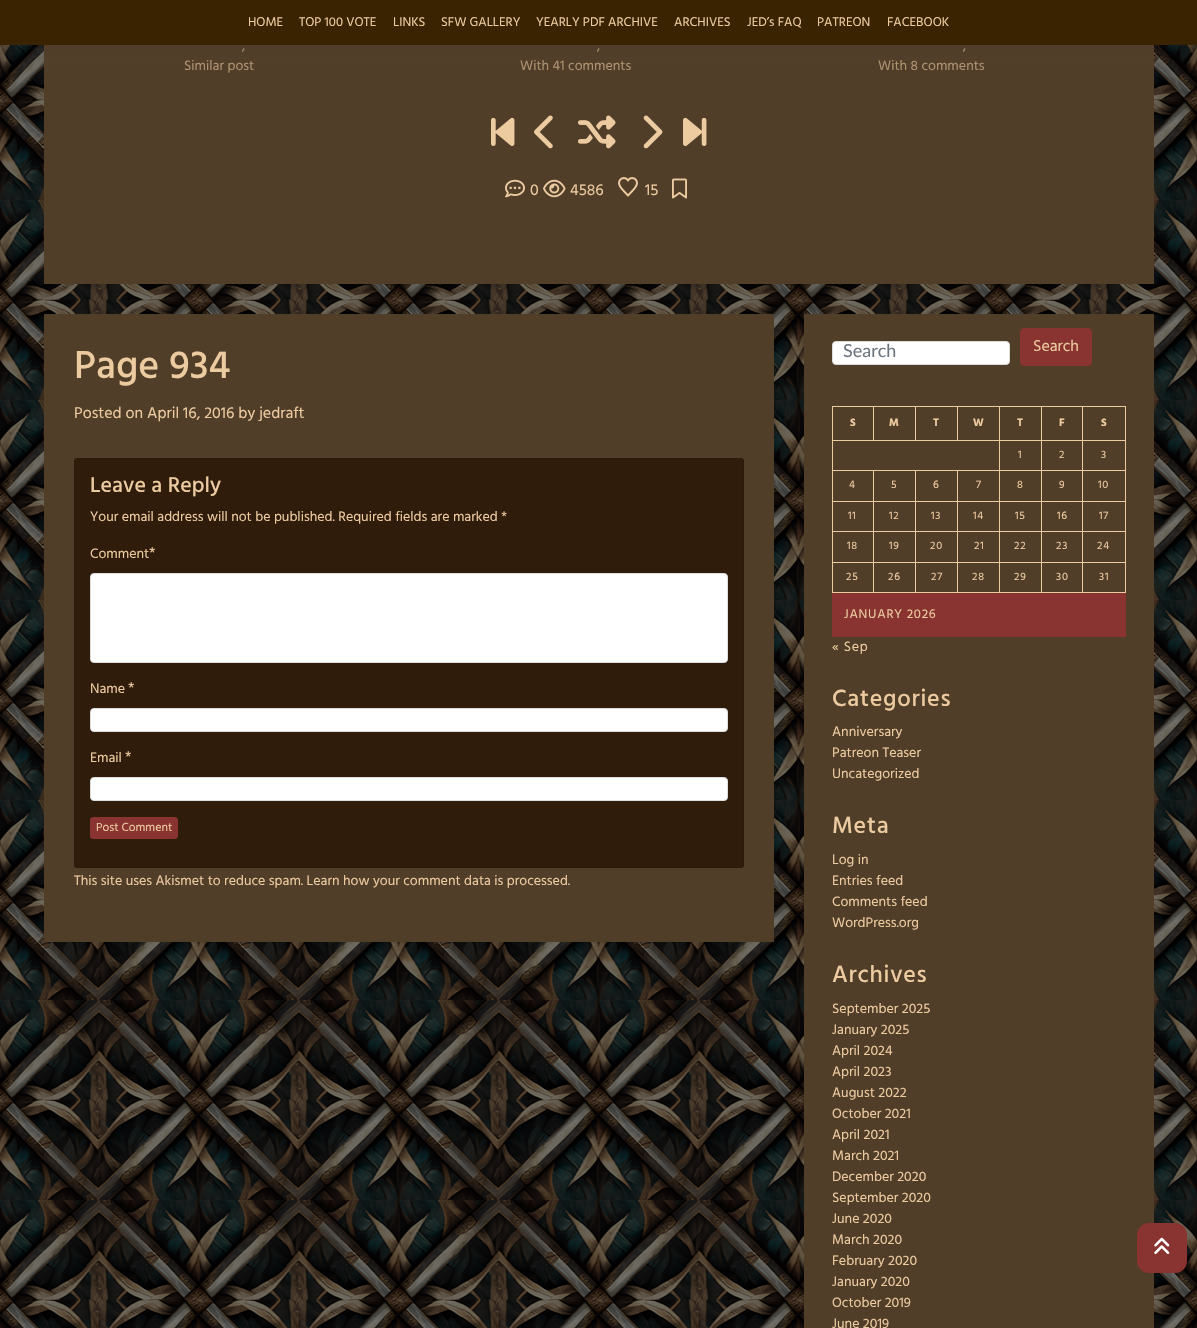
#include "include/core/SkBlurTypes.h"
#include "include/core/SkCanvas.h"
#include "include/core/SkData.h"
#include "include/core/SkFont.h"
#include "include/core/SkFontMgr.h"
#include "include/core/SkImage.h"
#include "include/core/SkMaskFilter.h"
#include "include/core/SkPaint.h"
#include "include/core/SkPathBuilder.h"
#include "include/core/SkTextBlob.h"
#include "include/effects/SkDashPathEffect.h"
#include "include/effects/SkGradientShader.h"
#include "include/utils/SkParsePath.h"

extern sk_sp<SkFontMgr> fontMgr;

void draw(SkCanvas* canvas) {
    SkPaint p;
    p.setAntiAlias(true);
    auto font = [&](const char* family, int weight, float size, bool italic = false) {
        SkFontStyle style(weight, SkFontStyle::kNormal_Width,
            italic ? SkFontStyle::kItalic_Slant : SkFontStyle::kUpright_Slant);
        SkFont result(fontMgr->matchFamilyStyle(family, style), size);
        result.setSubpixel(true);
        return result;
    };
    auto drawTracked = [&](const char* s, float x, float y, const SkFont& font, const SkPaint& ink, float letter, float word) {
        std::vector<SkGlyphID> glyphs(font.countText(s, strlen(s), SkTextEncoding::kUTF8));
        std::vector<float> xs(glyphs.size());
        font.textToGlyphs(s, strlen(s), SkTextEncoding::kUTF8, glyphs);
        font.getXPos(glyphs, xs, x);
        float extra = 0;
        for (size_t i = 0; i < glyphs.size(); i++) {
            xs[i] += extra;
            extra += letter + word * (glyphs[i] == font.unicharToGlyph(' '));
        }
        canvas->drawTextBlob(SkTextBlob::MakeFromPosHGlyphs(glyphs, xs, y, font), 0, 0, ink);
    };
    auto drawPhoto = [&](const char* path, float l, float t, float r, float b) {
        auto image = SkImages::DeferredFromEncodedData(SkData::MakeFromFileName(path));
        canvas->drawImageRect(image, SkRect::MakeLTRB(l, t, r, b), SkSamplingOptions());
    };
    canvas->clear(0xFFFFFFFF);
    drawPhoto("media/1.png", 0, 45, 1197, 1328);
    p.setColor(0xFF513E29);
    canvas->drawRect(SkRect::MakeLTRB(44, 45, 1154, 284), p);
    p.setColor(0x14323232);
    p.setMaskFilter(SkMaskFilter::MakeBlur(kNormal_SkBlurStyle, 5.5f));
    canvas->drawRect(SkRect::MakeLTRB(0, 5, 1197, 50), p);
    p.setMaskFilter(nullptr);
    p.setColor(0xFF3A2300);
    canvas->drawRect(SkRect::MakeLTRB(0, 0, 1197, 45), p);
    auto font1 = font("Hind", 400, 13);
    p.setColor(0xFFEDCBA1);
    {
        const struct { const char* s; float x, y; } items[] = {
            {"HOME", 248, 26},
            {"TOP 100 VOTE", 299, 26},
            {"LINKS", 393, 26},
            {"SFW GALLERY", 441, 26},
            {"YEARLY PDF ARCHIVE", 536, 26},
            {"ARCHIVES", 674, 26},
            {"JED’s FAQ", 747, 26},
            {"PATREON", 817, 26},
            {"FACEBOOK", 887, 26},
        };
        for (auto [s, x, y] : items) {
            canvas->drawString(s, x, y, font1, p);
        }
    }
    auto font2 = font("Hind", 400, 14);
    p.setColor(0xFFAF9371);
    {
        const struct { const char* s; float x, y; } items[] = {
            {",", 242, 50},
            {"Similar post", 184, 70},
            {",", 597, 50},
            {"With 41 comments", 520, 70},
            {",", 963, 50},
            {"With 8 comments", 878, 70},
        };
        for (auto [s, x, y] : items) {
            canvas->drawString(s, x, y, font2, p);
        }
    }
    drawPhoto("media/2.png", 491, 117, 515, 146);
    drawPhoto("media/3.png", 534, 115, 553, 149);
    drawPhoto("media/4.png", 578, 115, 616, 149);
    drawPhoto("media/5.png", 643, 115, 663, 149);
    drawPhoto("media/6.png", 683, 117, 707, 146);
    drawPhoto("media/7.png", 505, 179, 525, 198);
    auto font3 = font("Hind", 400, 16);
    p.setColor(0xFFEDCBA1);
    canvas->drawString("0", 530, 195, font3, p);
    drawPhoto("media/8.png", 543, 179, 566, 198);
    canvas->drawString("4586", 570, 195, font3, p);
    drawPhoto("media/9.png", 618, 177, 638, 197);
    canvas->drawString("15", 645, 195, font3, p);
    drawPhoto("media/10.png", 672, 178, 687, 199);
    p.setColor(0xFF513E29);
    canvas->drawRect(SkRect::MakeLTRB(44, 314, 774, 942), p);
    auto font4 = font("Hind", 500, 40);
    p.setColor(0xFFEDCBA1);
    canvas->drawString("Page 934", 74, 378, font4, p);
    canvas->drawString("Posted on April 16, 2016 by jedraft", 74, 418, font3, p);
    p.setColor(0xFF301C0B);
    canvas->drawRoundRect(SkRect::MakeLTRB(74, 458, 744, 868), 3, 3, p);
    p.setStyle(SkPaint::kStroke_Style);
    p.setStrokeWidth(1);
    p.setColor(0x1A000000);
    canvas->drawRoundRect(SkRect::MakeLTRB(74.5f, 458.5f, 743.5f, 867.5f), 2.5f, 2.5f, p);
    auto font5 = font("Hind", 500, 22);
    p.setStyle(SkPaint::kFill_Style);
    p.setColor(0xFFEDCBA1);
    canvas->drawString("Leave a Reply", 90, 492, font5, p);
    canvas->drawString("Your email address will not be published. Required fields are marked *", 90, 521, font2, p);
    canvas->drawString("Comment", 90, 558, font2, p);
    canvas->drawString("*", 149, 558, font3, p);
    p.setColor(0xFFFFFFFF);
    canvas->drawRoundRect(SkRect::MakeLTRB(90.5f, 573.5f, 727.5f, 662.5f), 3.5f, 3.5f, p);
    p.setStyle(SkPaint::kStroke_Style);
    p.setColor(0xFFDDDDDD);
    canvas->drawRoundRect(SkRect::MakeLTRB(90.5f, 573.5f, 727.5f, 662.5f), 3.5f, 3.5f, p);
    p.setStyle(SkPaint::kFill_Style);
    p.setColor(0xFFEDCBA1);
    canvas->drawString("Name", 90, 693, font2, p);
    canvas->drawString("*", 128, 693, font3, p);
    p.setColor(0xFFFFFFFF);
    canvas->drawRoundRect(SkRect::MakeLTRB(90.5f, 708.5f, 727.5f, 731.5f), 3.5f, 3.5f, p);
    p.setStyle(SkPaint::kStroke_Style);
    p.setColor(0xFFDDDDDD);
    canvas->drawRoundRect(SkRect::MakeLTRB(90.5f, 708.5f, 727.5f, 731.5f), 3.5f, 3.5f, p);
    p.setStyle(SkPaint::kFill_Style);
    p.setColor(0xFFEDCBA1);
    canvas->drawString("Email", 90, 762, font2, p);
    canvas->drawString("*", 125, 762, font3, p);
    p.setColor(0xFFFFFFFF);
    canvas->drawRoundRect(SkRect::MakeLTRB(90.5f, 777.5f, 727.5f, 800.5f), 3.5f, 3.5f, p);
    p.setStyle(SkPaint::kStroke_Style);
    p.setColor(0xFFDDDDDD);
    canvas->drawRoundRect(SkRect::MakeLTRB(90.5f, 777.5f, 727.5f, 800.5f), 3.5f, 3.5f, p);
    p.setStyle(SkPaint::kFill_Style);
    p.setColor(0xFF893431);
    canvas->drawRoundRect(SkRect::MakeLTRB(90.5f, 817.5f, 177.5f, 838.5f), 2.5f, 2.5f, p);
    p.setStyle(SkPaint::kStroke_Style);
    canvas->drawRoundRect(SkRect::MakeLTRB(90.5f, 817.5f, 177.5f, 838.5f), 2.5f, 2.5f, p);
    auto font6 = font("Hind", 400, 12);
    p.setStyle(SkPaint::kFill_Style);
    p.setColor(0xFFEDCBA1);
    canvas->drawString("Post Comment", 96, 831, font6, p);
    canvas->drawString("This site uses Akismet to reduce spam. Learn how your comment data is processed.", 74, 885, font2, p);
    p.setColor(0xFF513E29);
    canvas->drawRect(SkRect::MakeLTRB(804, 314, 1154, 1328), p);
    p.setColor(0xFFFFFFFF);
    canvas->drawRoundRect(SkRect::MakeLTRB(832.5f, 341.5f, 1009.5f, 364.5f), 3.5f, 3.5f, p);
    p.setStyle(SkPaint::kStroke_Style);
    p.setColor(0xFFDDDDDD);
    canvas->drawRoundRect(SkRect::MakeLTRB(832.5f, 341.5f, 1009.5f, 364.5f), 3.5f, 3.5f, p);
    auto font7 = font("Lato", 400, 18);
    p.setStyle(SkPaint::kFill_Style);
    p.setColor(0xFF6C757D);
    canvas->drawString("Search", 843, 357, font7, p);
    p.setColor(0xFF893431);
    canvas->drawRoundRect(SkRect::MakeLTRB(1020.5f, 328.5f, 1091.5f, 365.5f), 3.5f, 3.5f, p);
    p.setStyle(SkPaint::kStroke_Style);
    canvas->drawRoundRect(SkRect::MakeLTRB(1020.5f, 328.5f, 1091.5f, 365.5f), 3.5f, 3.5f, p);
    p.setStyle(SkPaint::kFill_Style);
    p.setColor(0xFFEDCBA1);
    canvas->drawString("Search", 1033, 351, font3, p);
    {
        const struct { float l, t, r, b; SkColor color; } items[] = {
            {1082, 406, 1126, 407, 0xFFEDCBA1},
            {1082, 440, 1126, 441, 0xFFEDCBA1},
            {1082, 470, 1126, 471, 0xFFEDCBA1},
            {1082, 501, 1126, 502, 0xFFEDCBA1},
            {1082, 531, 1126, 532, 0xFFEDCBA1},
            {1082, 562, 1126, 563, 0xFFEDCBA1},
            {1125, 562, 1126, 593, 0xFFEDCBA1},
            {1082, 592, 1126, 593, 0xFFEDCBA1},
            {1082, 562, 1083, 593, 0xFFEDCBA1},
            {1041, 562, 1083, 563, 0xFFEDCBA1},
            {1082, 531, 1083, 563, 0xFFEDCBA1},
            {1041, 531, 1083, 532, 0xFFEDCBA1},
            {1082, 501, 1083, 532, 0xFFEDCBA1},
            {1041, 501, 1083, 502, 0xFFEDCBA1},
            {1082, 470, 1083, 502, 0xFFEDCBA1},
            {1041, 470, 1083, 471, 0xFFEDCBA1},
            {1082, 440, 1083, 471, 0xFFEDCBA1},
            {1041, 440, 1083, 441, 0xFFEDCBA1},
            {1082, 406, 1083, 441, 0xFFEDCBA1},
            {1041, 406, 1083, 407, 0xFFEDCBA1},
            {1041, 592, 1083, 593, 0xFFEDCBA1},
            {1041, 562, 1042, 593, 0xFFEDCBA1},
            {999, 562, 1042, 563, 0xFFEDCBA1},
            {1041, 531, 1042, 563, 0xFFEDCBA1},
            {999, 531, 1042, 532, 0xFFEDCBA1},
            {1041, 501, 1042, 532, 0xFFEDCBA1},
            {999, 501, 1042, 502, 0xFFEDCBA1},
            {1041, 470, 1042, 502, 0xFFEDCBA1},
            {999, 470, 1042, 471, 0xFFEDCBA1},
            {1041, 440, 1042, 471, 0xFFEDCBA1},
            {999, 440, 1042, 441, 0xFFEDCBA1},
            {1041, 406, 1042, 441, 0xFFEDCBA1},
            {999, 406, 1042, 407, 0xFFEDCBA1},
            {999, 592, 1042, 593, 0xFFEDCBA1},
            {999, 562, 1000, 593, 0xFFEDCBA1},
            {957, 562, 1000, 563, 0xFFEDCBA1},
            {999, 531, 1000, 563, 0xFFEDCBA1},
            {957, 531, 1000, 532, 0xFFEDCBA1},
            {999, 501, 1000, 532, 0xFFEDCBA1},
            {957, 501, 1000, 502, 0xFFEDCBA1},
            {999, 470, 1000, 502, 0xFFEDCBA1},
            {957, 470, 1000, 471, 0xFFEDCBA1},
            {999, 440, 1000, 471, 0xFFEDCBA1},
            {832, 440, 1000, 441, 0xFFEDCBA1},
            {999, 406, 1000, 441, 0xFFEDCBA1},
            {957, 406, 1000, 407, 0xFFEDCBA1},
            {957, 406, 958, 441, 0xFFEDCBA1},
            {915, 406, 958, 407, 0xFFEDCBA1},
            {915, 406, 916, 441, 0xFFEDCBA1},
            {873, 406, 916, 407, 0xFFEDCBA1},
            {873, 406, 874, 441, 0xFFEDCBA1},
            {832, 406, 874, 407, 0xFFEDCBA1},
            {957, 592, 1000, 593, 0xFFEDCBA1},
            {957, 562, 958, 593, 0xFFEDCBA1},
            {915, 562, 958, 563, 0xFFEDCBA1},
            {957, 531, 958, 563, 0xFFEDCBA1},
            {915, 531, 958, 532, 0xFFEDCBA1},
            {957, 501, 958, 532, 0xFFEDCBA1},
            {915, 501, 958, 502, 0xFFEDCBA1},
            {957, 470, 958, 502, 0xFFEDCBA1},
            {915, 470, 958, 471, 0xFFEDCBA1},
            {915, 592, 958, 593, 0xFFEDCBA1},
            {915, 562, 916, 593, 0xFFEDCBA1},
            {873, 562, 916, 563, 0xFFEDCBA1},
            {915, 531, 916, 563, 0xFFEDCBA1},
            {873, 531, 916, 532, 0xFFEDCBA1},
            {915, 501, 916, 532, 0xFFEDCBA1},
            {873, 501, 916, 502, 0xFFEDCBA1},
            {915, 470, 916, 502, 0xFFEDCBA1},
            {873, 470, 916, 471, 0xFFEDCBA1},
            {873, 592, 916, 593, 0xFFEDCBA1},
            {873, 562, 874, 593, 0xFFEDCBA1},
            {832, 562, 874, 563, 0xFFEDCBA1},
            {873, 531, 874, 563, 0xFFEDCBA1},
            {832, 531, 874, 532, 0xFFEDCBA1},
            {873, 501, 874, 532, 0xFFEDCBA1},
            {832, 501, 874, 502, 0xFFEDCBA1},
            {873, 470, 874, 502, 0xFFEDCBA1},
            {832, 470, 874, 471, 0xFFEDCBA1},
            {832, 592, 874, 593, 0xFFEDCBA1},
            {832, 562, 833, 593, 0xFFEDCBA1},
            {832, 531, 833, 563, 0xFFEDCBA1},
            {832, 501, 833, 532, 0xFFEDCBA1},
            {832, 470, 833, 502, 0xFFEDCBA1},
            {832, 440, 833, 471, 0xFFEDCBA1},
            {832, 406, 833, 441, 0xFFEDCBA1},
        };
        for (auto [l, t, r, b, color] : items) {
            p.setColor(color);
            canvas->drawRect(SkRect::MakeLTRB(l, t, r, b), p);
        }
    }
    auto font8 = font("Hind", 700, 11);
    {
        const struct { const char* s; float x, y; } items[] = {
            {"S", 850, 426},
            {"M", 889, 426},
            {"T", 933, 426},
            {"W", 973, 426},
            {"T", 1017, 426},
            {"F", 1059, 426},
        };
        for (auto [s, x, y] : items) {
            drawTracked(s, x, y, font8, p, 0.75f, 0);
        }
    }
    {
        const struct { float l, t, r, b; SkColor color; } items[] = {
            {1125, 531, 1126, 563, 0xFFEDCBA1},
            {1125, 501, 1126, 532, 0xFFEDCBA1},
            {1125, 470, 1126, 502, 0xFFEDCBA1},
            {1125, 440, 1126, 471, 0xFFEDCBA1},
            {1125, 406, 1126, 441, 0xFFEDCBA1},
        };
        for (auto [l, t, r, b, color] : items) {
            p.setColor(color);
            canvas->drawRect(SkRect::MakeLTRB(l, t, r, b), p);
        }
    }
    drawTracked("S", 1101, 426, font8, p, 0.75f, 0);
    auto font9 = font("Hind", 400, 11);
    {
        const struct { const char* s; float x, y; } items[] = {
            {"1", 1018, 458},
            {"2", 1059, 458},
            {"3", 1101, 458},
            {"4", 849, 488},
            {"5", 891, 488},
            {"6", 933, 488},
            {"7", 976, 488},
            {"8", 1017, 488},
            {"9", 1059, 488},
            {"10", 1098, 488},
            {"11", 848, 519},
            {"12", 889, 519},
            {"13", 931, 519},
            {"14", 973, 519},
            {"15", 1015, 519},
            {"16", 1057, 519},
            {"17", 1099, 519},
            {"18", 847, 549},
            {"19", 889, 549},
            {"20", 930, 549},
            {"21", 974, 549},
            {"22", 1014, 549},
            {"23", 1056, 549},
            {"24", 1097, 549},
            {"25", 846, 580},
            {"26", 888, 580},
            {"27", 931, 580},
            {"28", 972, 580},
            {"29", 1014, 580},
            {"30", 1056, 580},
            {"31", 1099, 580},
        };
        for (auto [s, x, y] : items) {
            drawTracked(s, x, y, font9, p, 0.75f, 0);
        }
    }
    p.setColor(0xFF893431);
    canvas->drawRect(SkRect::MakeLTRB(832, 593, 1126, 637), p);
    p.setColor(0xFFEDCBA1);
    drawTracked("JANUARY 2026", 844, 618, font1, p, 0.75f, 0);
    drawTracked("« Sep", 832, 651, font2, p, 0.75f, 0);
    auto font10 = font("Hind", 500, 24);
    drawTracked("Categories", 832, 706, font10, p, 0.75f, 0);
    {
        const struct { const char* s; float x, y; } items[] = {
            {"Anniversary", 832, 736},
            {"Patreon Teaser", 832, 757},
            {"Uncategorized", 832, 778},
        };
        for (auto [s, x, y] : items) {
            canvas->drawString(s, x, y, font2, p);
        }
    }
    drawTracked("Meta", 832, 833, font10, p, 0.75f, 0);
    {
        const struct { const char* s; float x, y; } items[] = {
            {"Log in", 832, 864},
            {"Entries feed", 832, 885},
            {"Comments feed", 832, 906},
            {"WordPress.org", 832, 927},
        };
        for (auto [s, x, y] : items) {
            canvas->drawString(s, x, y, font2, p);
        }
    }
    drawTracked("Archives", 832, 982, font10, p, 0.75f, 0);
    {
        const struct { const char* s; float x, y; } items[] = {
            {"September 2025", 832, 1013},
            {"January 2025", 832, 1034},
            {"April 2024", 832, 1055},
            {"April 2023", 832, 1076},
            {"August 2022", 832, 1097},
            {"October 2021", 832, 1118},
            {"April 2021", 832, 1139},
            {"March 2021", 832, 1160},
            {"December 2020", 832, 1181},
            {"September 2020", 832, 1202},
            {"June 2020", 832, 1223},
            {"March 2020", 832, 1244},
            {"February 2020", 832, 1265},
            {"January 2020", 832, 1286},
            {"October 2019", 832, 1307},
            {"June 2019", 832, 1328},
        };
        for (auto [s, x, y] : items) {
            canvas->drawString(s, x, y, font2, p);
        }
    }
    p.setColor(0xFF893431);
    canvas->drawRoundRect(SkRect::MakeLTRB(1137, 1223, 1187, 1273), 12, 12, p);
    drawPhoto("media/11.png", 1154, 1237, 1170, 1254);
}
